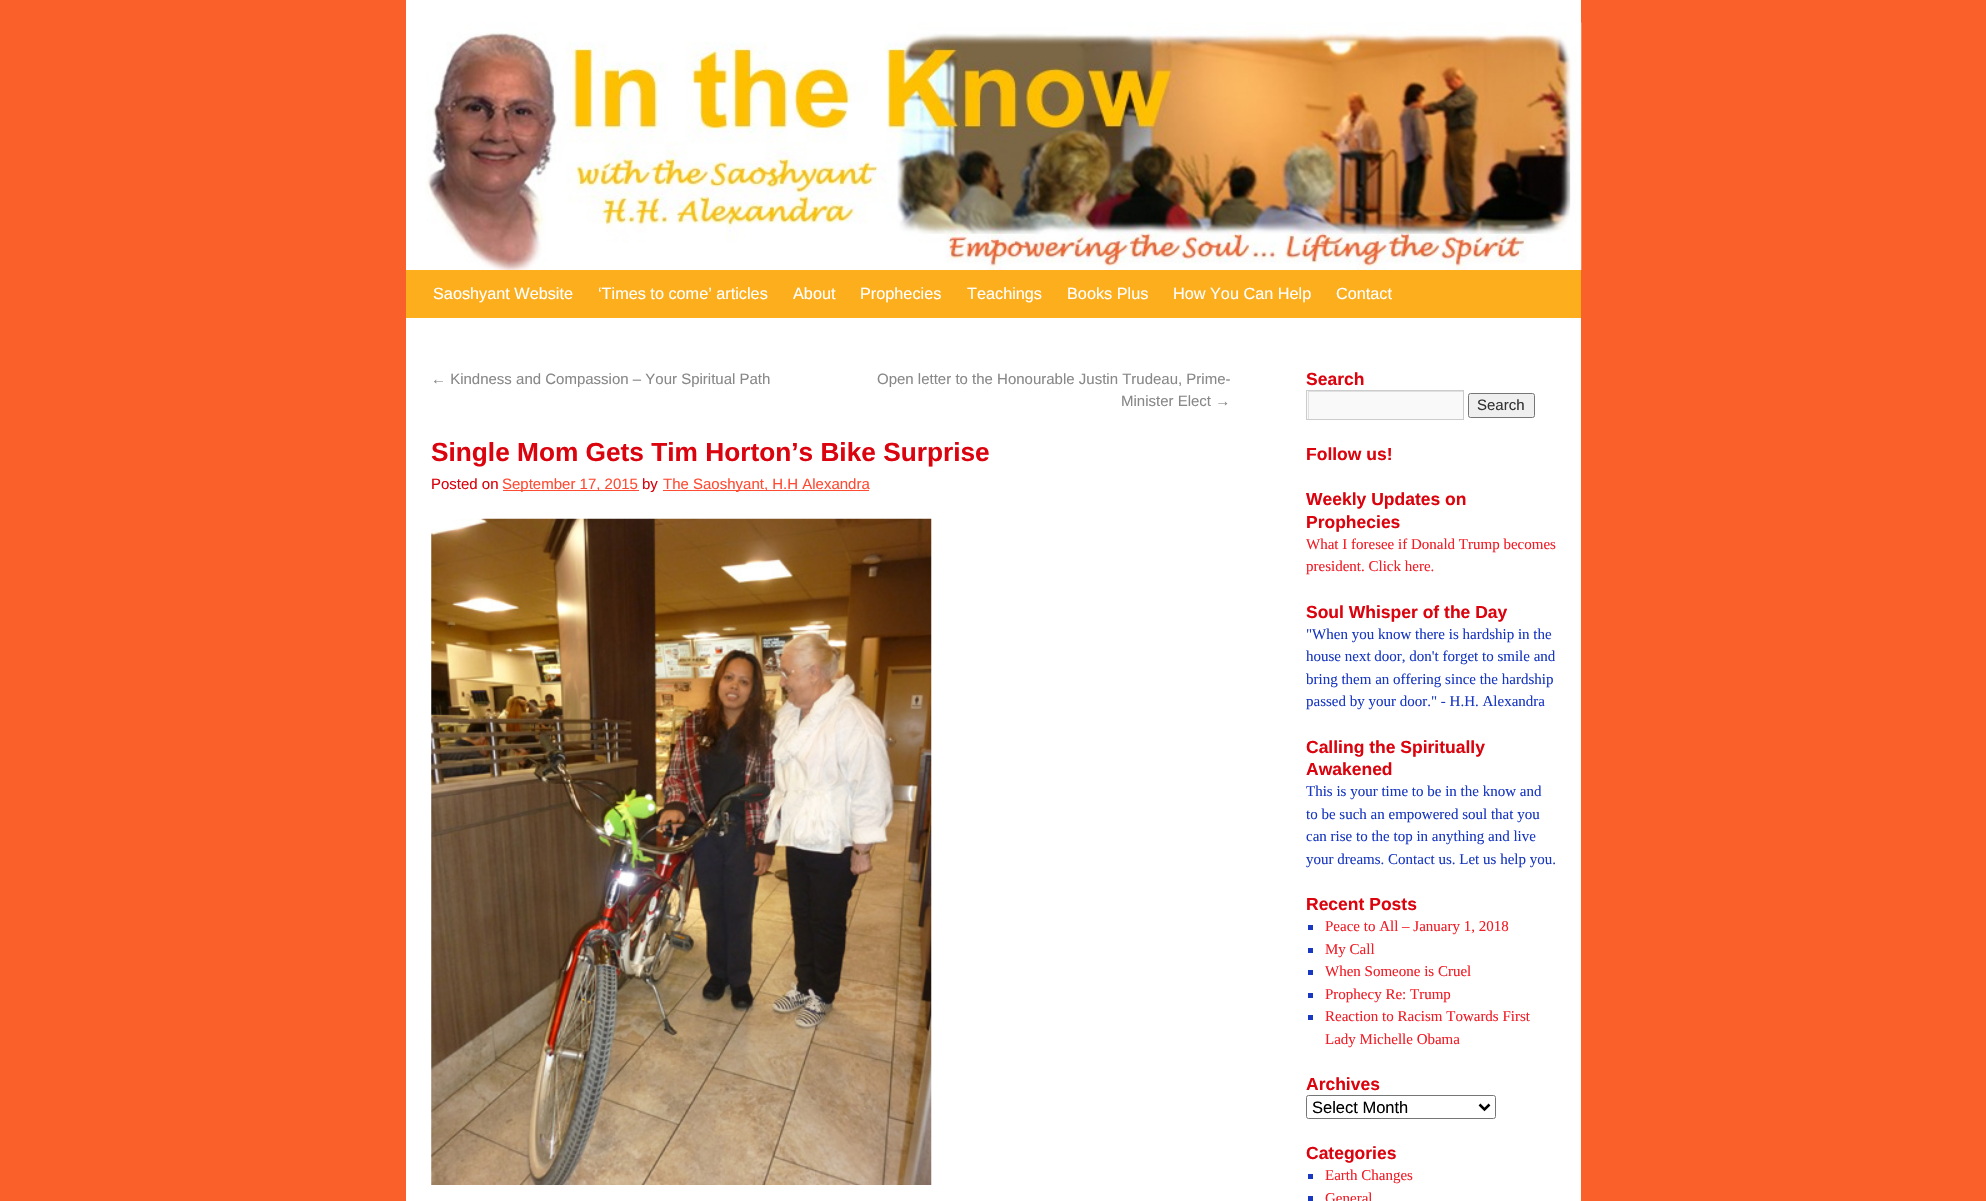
#include "include/core/SkBlurTypes.h"
#include "include/core/SkCanvas.h"
#include "include/core/SkData.h"
#include "include/core/SkFont.h"
#include "include/core/SkFontMgr.h"
#include "include/core/SkImage.h"
#include "include/core/SkMaskFilter.h"
#include "include/core/SkPaint.h"
#include "include/core/SkPathBuilder.h"
#include "include/core/SkTextBlob.h"
#include "include/effects/SkDashPathEffect.h"
#include "include/effects/SkGradientShader.h"
#include "include/utils/SkParsePath.h"

extern sk_sp<SkFontMgr> fontMgr;

void draw(SkCanvas* canvas) {
    SkPaint p;
    p.setAntiAlias(true);
    auto font = [&](const char* family, int weight, float size, bool italic = false) {
        SkFontStyle style(weight, SkFontStyle::kNormal_Width,
            italic ? SkFontStyle::kItalic_Slant : SkFontStyle::kUpright_Slant);
        SkFont result(fontMgr->matchFamilyStyle(family, style), size);
        result.setSubpixel(true);
        return result;
    };
    auto drawPhoto = [&](const char* path, float l, float t, float r, float b) {
        auto image = SkImages::DeferredFromEncodedData(SkData::MakeFromFileName(path));
        canvas->drawImageRect(image, SkRect::MakeLTRB(l, t, r, b), SkSamplingOptions());
    };
    canvas->clear(0xFFFA6029);
    p.setColor(0xFFFFFFFF);
    canvas->drawRect(SkRect::MakeLTRB(406, 0, 1581, 1201), p);
    drawPhoto("media/1.png", 425, 22, 1582, 270);
    p.setColor(0xFFFCAE1D);
    canvas->drawRect(SkRect::MakeLTRB(406, 270, 1581, 318), p);
    auto font1 = font("Liberation Sans", 400, 16.25f);
    p.setColor(0xFFFFFFFF);
    {
        const struct { const char* s; float x, y; } items[] = {
            {"Saoshyant Website", 433, 299},
            {"‘Times to come’ articles", 598, 299},
            {"About", 793, 299},
            {"Prophecies", 860, 299},
            {"Teachings", 967, 299},
            {"Books Plus", 1067, 299},
            {"How You Can Help", 1173, 299},
            {"Contact", 1336, 299},
        };
        for (auto [s, x, y] : items) {
            canvas->drawString(s, x, y, font1, p);
        }
    }
    auto font2 = font("Liberation Sans", 400, 15);
    p.setColor(0xFF888888);
    {
        const struct { const char* s; float x, y; } items[] = {
            {"← Kindness and Compassion – Your Spiritual Path", 431, 384},
            {"Open letter to the Honourable Justin Trudeau, Prime-", 877, 384},
            {"Minister Elect →", 1121, 406},
        };
        for (auto [s, x, y] : items) {
            canvas->drawString(s, x, y, font2, p);
        }
    }
    auto font3 = font("Liberation Sans", 700, 26.25f);
    p.setColor(0xFFDB040E);
    canvas->drawString("Single Mom Gets Tim Horton’s Bike Surprise", 431, 461, font3, p);
    canvas->drawString("Posted on", 431, 489, font2, p);
    p.setColor(0xFFFF4B33);
    canvas->drawRect(SkRect::MakeLTRB(503, 490, 639, 491), p);
    canvas->drawString("September 17, 2015", 502, 489, font2, p);
    p.setColor(0xFFDB040E);
    canvas->drawString("by", 642, 489, font2, p);
    p.setColor(0xFFFF4B33);
    canvas->drawRect(SkRect::MakeLTRB(663, 490, 869, 491), p);
    canvas->drawString("The Saoshyant, H.H Alexandra", 663, 489, font2, p);
    drawPhoto("media/2.png", 431, 518, 932, 1185);
    auto font4 = font("Liberation Sans", 700, 17.5f);
    p.setColor(0xFFDB040E);
    canvas->drawString("Search", 1306, 385, font4, p);
    p.setColor(0xFFF9F9F9);
    canvas->drawRect(SkRect::MakeLTRB(1307, 391, 1463, 419), p);
    canvas->save();
    canvas->clipRect(SkRect::MakeLTRB(1308, 391, 1463, 419));
    p.setColor(0xFFE0E0E0);
    canvas->drawPath(SkPathBuilder(SkPathFillType::kEvenOdd).moveTo(1184, 268).lineTo(1586, 268).lineTo(1586, 542).lineTo(1184, 542).close().moveTo(1309, 392).lineTo(1464, 392).lineTo(1464, 420).lineTo(1309, 420).close().detach(), p);
    canvas->restore();
    p.setStyle(SkPaint::kStroke_Style);
    p.setStrokeWidth(1);
    p.setColor(0xFFCCCCCC);
    canvas->drawRect(SkRect::MakeLTRB(1306.5f, 390.5f, 1463.5f, 419.5f), p);
    p.setStyle(SkPaint::kFill_Style);
    p.setColor(0xFFEFEFEF);
    canvas->drawRoundRect(SkRect::MakeLTRB(1468.5f, 393.5f, 1534.5f, 417.5f), 2, 2, p);
    p.setStyle(SkPaint::kStroke_Style);
    p.setColor(0xFF767676);
    canvas->drawRoundRect(SkRect::MakeLTRB(1468.5f, 393.5f, 1534.5f, 417.5f), 2, 2, p);
    p.setStyle(SkPaint::kFill_Style);
    p.setColor(0xFF333333);
    canvas->drawString("Search", 1477, 410, font2, p);
    p.setColor(0xFFDB040E);
    {
        const struct { const char* s; float x, y; } items[] = {
            {"Follow us!", 1306, 460},
            {"Weekly Updates on", 1306, 505},
            {"Prophecies", 1306, 528},
        };
        for (auto [s, x, y] : items) {
            canvas->drawString(s, x, y, font4, p);
        }
    }
    auto font5 = font("Liberation Serif", 400, 15);
    p.setColor(0xFFF11D27);
    canvas->drawString("What I foresee if Donald Trump becomes", 1306, 549, font5, p);
    canvas->drawString("president. Click here.", 1306, 571, font5, p);
    p.setColor(0xFFDB040E);
    canvas->drawString("Soul Whisper of the Day", 1306, 618, font4, p);
    p.setColor(0xFF1938C1);
    {
        const struct { const char* s; float x, y; } items[] = {
            {"\"When you know there is hardship in the", 1306, 639},
            {"house next door, don't forget to smile and", 1306, 661},
            {"bring them an offering since the hardship", 1306, 684},
            {"passed by your door.\" - H.H. Alexandra", 1306, 706},
        };
        for (auto [s, x, y] : items) {
            canvas->drawString(s, x, y, font5, p);
        }
    }
    p.setColor(0xFFDB040E);
    canvas->drawString("Calling the Spiritually", 1306, 753, font4, p);
    canvas->drawString("Awakened", 1306, 775, font4, p);
    p.setColor(0xFF1938C1);
    {
        const struct { const char* s; float x, y; } items[] = {
            {"This is your time to be in the know and", 1306, 796},
            {"to be such an empowered soul that you", 1306, 819},
            {"can rise to the top in anything and live", 1306, 841},
            {"your dreams. Contact us. Let us help you.", 1306, 864},
        };
        for (auto [s, x, y] : items) {
            canvas->drawString(s, x, y, font5, p);
        }
    }
    p.setColor(0xFFDB040E);
    canvas->drawString("Recent Posts", 1306, 910, font4, p);
    p.setColor(0xFF1938C1);
    canvas->drawRect(SkRect::MakeLTRB(1308, 925, 1313, 930), p);
    p.setColor(0xFFF11D27);
    canvas->drawString("Peace to All – January 1, 2018", 1325, 931, font5, p);
    p.setColor(0xFF1938C1);
    canvas->drawRect(SkRect::MakeLTRB(1308, 948, 1313, 953), p);
    p.setColor(0xFFF11D27);
    canvas->drawString("My Call", 1325, 954, font5, p);
    p.setColor(0xFF1938C1);
    canvas->drawRect(SkRect::MakeLTRB(1308, 970, 1313, 975), p);
    p.setColor(0xFFF11D27);
    canvas->drawString("When Someone is Cruel", 1325, 976, font5, p);
    p.setColor(0xFF1938C1);
    canvas->drawRect(SkRect::MakeLTRB(1308, 993, 1313, 998), p);
    p.setColor(0xFFF11D27);
    canvas->drawString("Prophecy Re: Trump", 1325, 999, font5, p);
    p.setColor(0xFF1938C1);
    canvas->drawRect(SkRect::MakeLTRB(1308, 1015, 1313, 1020), p);
    p.setColor(0xFFF11D27);
    canvas->drawString("Reaction to Racism Towards First", 1325, 1021, font5, p);
    canvas->drawString("Lady Michelle Obama", 1325, 1044, font5, p);
    p.setColor(0xFFDB040E);
    canvas->drawString("Archives", 1306, 1090, font4, p);
    p.setStyle(SkPaint::kStroke_Style);
    p.setColor(0xFF767676);
    canvas->drawRoundRect(SkRect::MakeLTRB(1306.5f, 1095.5f, 1495.5f, 1118.5f), 2, 2, p);
    p.setStrokeWidth(2.5f);
    p.setColor(0xFF000000);
    canvas->drawPath(SkPathBuilder().moveTo(1479.5f, 1104.5f).lineTo(1484.5f, 1109.5f).lineTo(1489.5f, 1104.5f).detach(), p);
    auto font6 = font("Liberation Sans", 400, 16.5f);
    p.setStyle(SkPaint::kFill_Style);
    canvas->drawString("Select Month", 1312, 1113, font6, p);
    p.setColor(0xFFDB040E);
    canvas->drawString("Categories", 1306, 1159, font4, p);
    p.setColor(0xFF1938C1);
    canvas->drawRect(SkRect::MakeLTRB(1308, 1174, 1313, 1179), p);
    p.setColor(0xFFF11D27);
    canvas->drawString("Earth Changes", 1325, 1180, font5, p);
    p.setColor(0xFF1938C1);
    canvas->drawRect(SkRect::MakeLTRB(1308, 1196, 1313, 1201), p);
    p.setColor(0xFFF11D27);
    canvas->drawString("General", 1325, 1203, font5, p);
}
